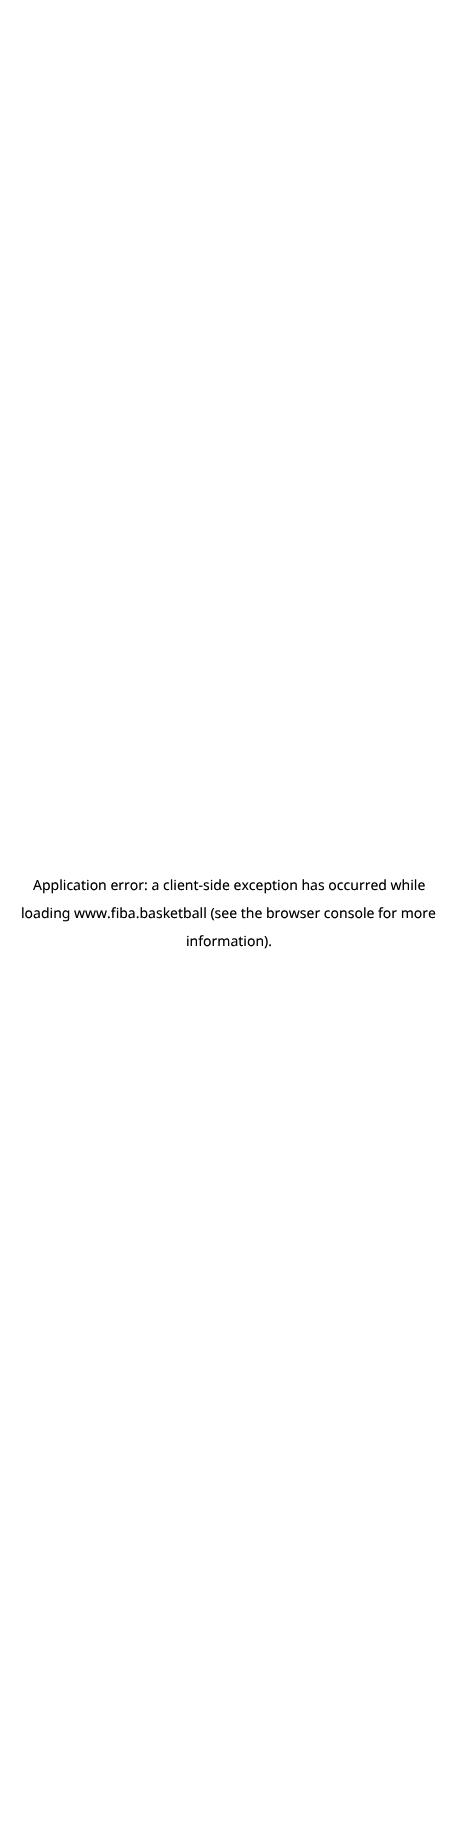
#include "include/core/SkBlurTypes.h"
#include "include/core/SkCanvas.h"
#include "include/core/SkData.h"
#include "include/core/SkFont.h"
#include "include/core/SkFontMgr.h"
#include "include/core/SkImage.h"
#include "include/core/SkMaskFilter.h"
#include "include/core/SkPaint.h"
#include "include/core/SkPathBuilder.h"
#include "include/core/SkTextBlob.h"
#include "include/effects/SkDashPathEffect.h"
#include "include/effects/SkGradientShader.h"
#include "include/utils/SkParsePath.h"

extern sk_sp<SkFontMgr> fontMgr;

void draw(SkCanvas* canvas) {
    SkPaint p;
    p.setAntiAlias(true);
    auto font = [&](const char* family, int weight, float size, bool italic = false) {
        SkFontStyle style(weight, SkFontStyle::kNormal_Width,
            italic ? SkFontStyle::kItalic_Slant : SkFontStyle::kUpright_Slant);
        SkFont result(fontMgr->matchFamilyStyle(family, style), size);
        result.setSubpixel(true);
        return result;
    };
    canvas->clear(0xFFFFFFFF);
    auto font1 = font("Noto Sans", 400, 14);
    p.setColor(0xFF000000);
    {
        const struct { const char* s; float x, y; } items[] = {
            {"Application error: a client-side exception has occurred while", 33, 890},
            {"loading www.fiba.basketball (see the browser console for more", 21, 918},
            {"information).", 186, 946},
        };
        for (auto [s, x, y] : items) {
            canvas->drawString(s, x, y, font1, p);
        }
    }
}
